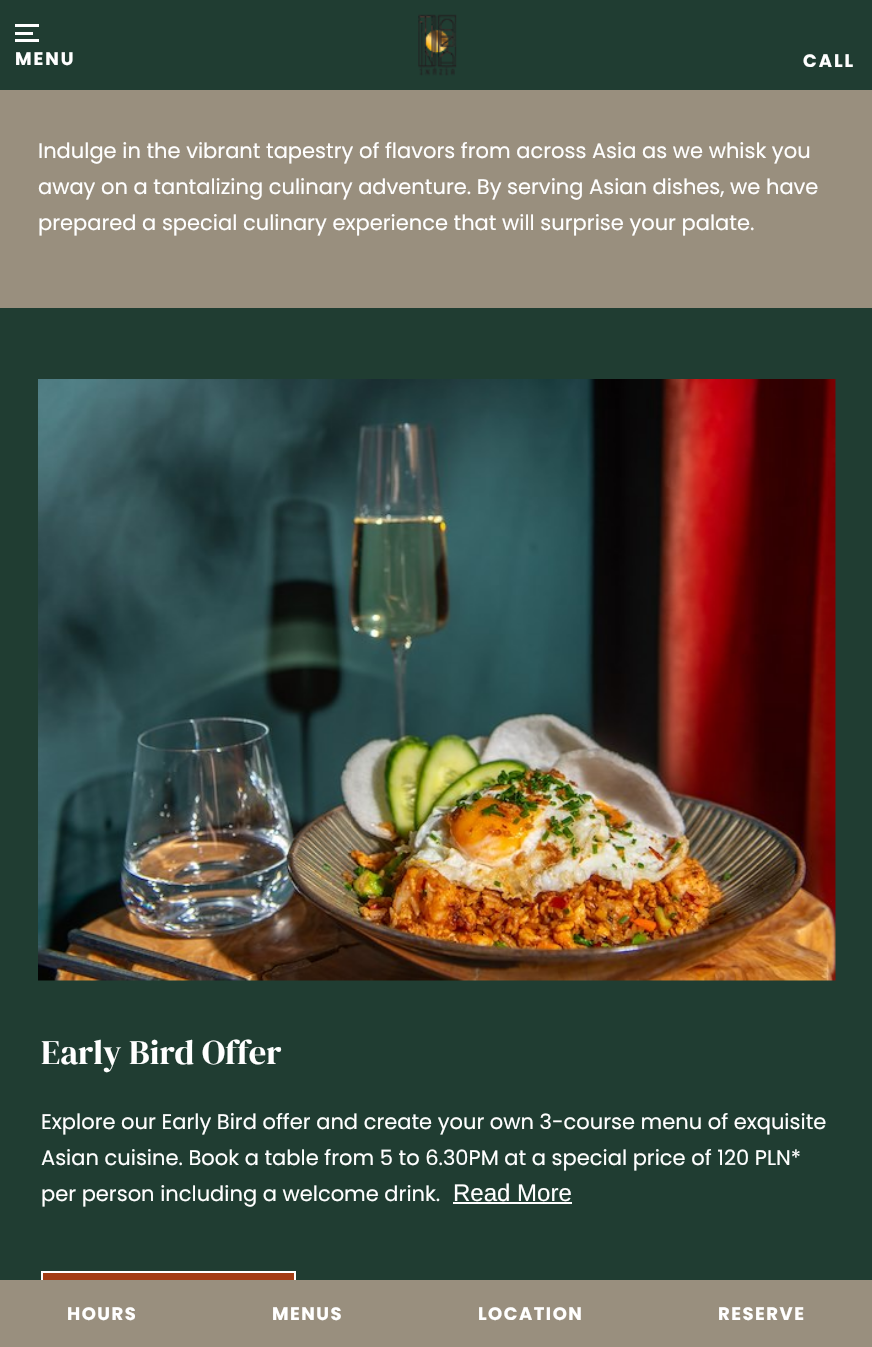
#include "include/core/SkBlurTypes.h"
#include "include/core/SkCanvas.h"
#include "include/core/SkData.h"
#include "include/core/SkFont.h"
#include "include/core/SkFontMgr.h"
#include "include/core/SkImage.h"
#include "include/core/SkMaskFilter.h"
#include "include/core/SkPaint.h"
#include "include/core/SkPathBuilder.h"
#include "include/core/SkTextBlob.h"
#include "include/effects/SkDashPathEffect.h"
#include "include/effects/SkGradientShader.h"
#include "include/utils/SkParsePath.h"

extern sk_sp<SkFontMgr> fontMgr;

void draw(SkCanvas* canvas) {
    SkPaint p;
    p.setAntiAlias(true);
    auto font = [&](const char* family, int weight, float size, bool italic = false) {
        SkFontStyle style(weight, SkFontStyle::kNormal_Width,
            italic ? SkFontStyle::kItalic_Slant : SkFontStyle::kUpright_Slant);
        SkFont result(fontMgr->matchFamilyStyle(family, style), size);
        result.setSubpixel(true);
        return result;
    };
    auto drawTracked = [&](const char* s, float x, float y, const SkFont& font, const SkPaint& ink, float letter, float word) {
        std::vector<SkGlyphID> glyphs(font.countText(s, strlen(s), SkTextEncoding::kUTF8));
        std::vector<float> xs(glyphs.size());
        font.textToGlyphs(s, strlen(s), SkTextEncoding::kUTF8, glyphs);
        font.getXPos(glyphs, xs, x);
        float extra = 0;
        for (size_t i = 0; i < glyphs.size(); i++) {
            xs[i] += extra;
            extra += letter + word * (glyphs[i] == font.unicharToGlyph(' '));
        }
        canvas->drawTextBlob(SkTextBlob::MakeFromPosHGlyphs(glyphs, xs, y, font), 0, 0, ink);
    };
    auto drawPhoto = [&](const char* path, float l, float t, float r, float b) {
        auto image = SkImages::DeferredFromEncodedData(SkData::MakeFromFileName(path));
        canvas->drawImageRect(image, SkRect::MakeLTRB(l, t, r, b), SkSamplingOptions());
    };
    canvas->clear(0xFF203D32);
    {
        const struct { float l, t, r, b; SkColor color; } items[] = {
            {15, 24, 39, 27, 0xFFFFFFFF},
            {15, 32, 33, 35, 0xFFFFFFFF},
            {15, 39, 39, 42, 0xFFFFFFFF},
        };
        for (auto [l, t, r, b, color] : items) {
            p.setColor(color);
            canvas->drawRect(SkRect::MakeLTRB(l, t, r, b), p);
        }
    }
    auto font1 = font("Poppins", 700, 18);
    drawTracked("MENU", 15, 65, font1, p, 2, 0);
    drawPhoto("media/1.png", 418, 14, 457, 76);
    drawTracked("CALL", 803, 67, font1, p, 2, 0);
    p.setColor(0xFF998F7E);
    canvas->drawRect(SkRect::MakeLTRB(0, 90, 872, 308), p);
    auto font2 = font("Poppins", 400, 21);
    p.setColor(0xFFFFFFFF);
    {
        const struct { const char* s; float x, y; } items[] = {
            {"Indulge in the vibrant tapestry of flavors from across Asia as we whisk you", 38, 158},
            {"away on a tantalizing culinary adventure. By serving Asian dishes, we have", 38, 194},
            {"prepared a special culinary experience that will surprise your palate.", 38, 230},
        };
        for (auto [s, x, y] : items) {
            canvas->drawString(s, x, y, font2, p);
        }
    }
    drawPhoto("media/2.png", 38, 379, 836, 981);
    auto font3 = font("DM Serif Display", 400, 34.5f);
    canvas->drawString("Early Bird Offer", 41, 1064, font3, p);
    {
        const struct { const char* s; float x, y; } items[] = {
            {"Explore our Early Bird offer and create your own 3-course menu of exquisite", 41, 1129},
            {"Asian cuisine. Book a table from 5 to 6.30PM at a special price of 120 PLN*", 41, 1165},
            {"per person including a welcome drink.", 41, 1201},
        };
        for (auto [s, x, y] : items) {
            canvas->drawString(s, x, y, font2, p);
        }
    }
    auto font4 = font("Liberation Sans", 400, 24);
    canvas->drawString("Read More", 453, 1201, font4, p);
    canvas->drawRect(SkRect::MakeLTRB(453, 1202, 572, 1204), p);
    p.setColor(0xFFA43D15);
    canvas->drawRect(SkRect::MakeLTRB(43, 1273, 294, 1280), p);
    p.setStyle(SkPaint::kStroke_Style);
    p.setStrokeWidth(2);
    p.setColor(0xFFFFFFFF);
    canvas->drawRect(SkRect::MakeLTRB(42, 1272, 295, 1345), p);
    p.setStyle(SkPaint::kFill_Style);
    p.setColor(0xFF998F7E);
    canvas->drawRect(SkRect::MakeLTRB(0, 1280, 872, 1347), p);
    p.setColor(0xFFFFFFFF);
    {
        const struct { const char* s; float x, y; } items[] = {
            {"HOURS", 67, 1320},
            {"MENUS", 272, 1320},
            {"LOCATION", 478, 1320},
            {"RESERVE", 718, 1320},
        };
        for (auto [s, x, y] : items) {
            drawTracked(s, x, y, font1, p, 1.5f, 0);
        }
    }
}
